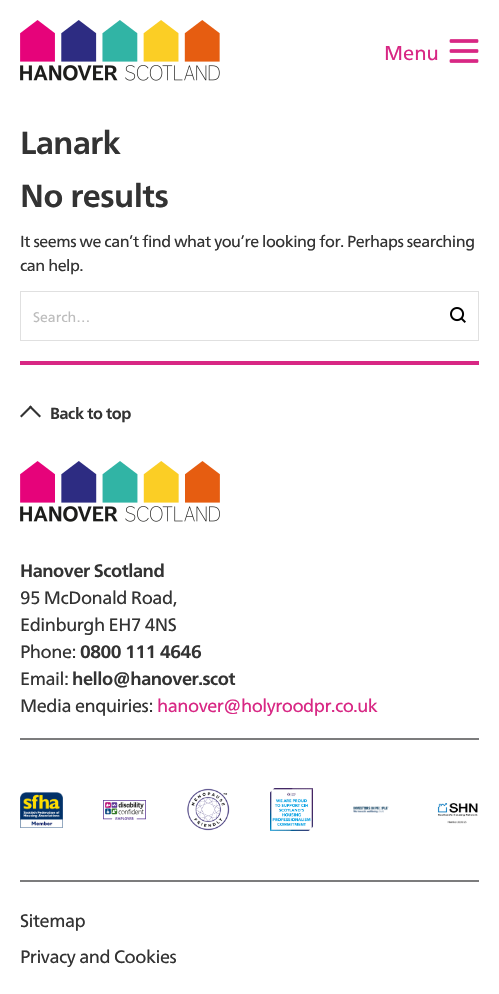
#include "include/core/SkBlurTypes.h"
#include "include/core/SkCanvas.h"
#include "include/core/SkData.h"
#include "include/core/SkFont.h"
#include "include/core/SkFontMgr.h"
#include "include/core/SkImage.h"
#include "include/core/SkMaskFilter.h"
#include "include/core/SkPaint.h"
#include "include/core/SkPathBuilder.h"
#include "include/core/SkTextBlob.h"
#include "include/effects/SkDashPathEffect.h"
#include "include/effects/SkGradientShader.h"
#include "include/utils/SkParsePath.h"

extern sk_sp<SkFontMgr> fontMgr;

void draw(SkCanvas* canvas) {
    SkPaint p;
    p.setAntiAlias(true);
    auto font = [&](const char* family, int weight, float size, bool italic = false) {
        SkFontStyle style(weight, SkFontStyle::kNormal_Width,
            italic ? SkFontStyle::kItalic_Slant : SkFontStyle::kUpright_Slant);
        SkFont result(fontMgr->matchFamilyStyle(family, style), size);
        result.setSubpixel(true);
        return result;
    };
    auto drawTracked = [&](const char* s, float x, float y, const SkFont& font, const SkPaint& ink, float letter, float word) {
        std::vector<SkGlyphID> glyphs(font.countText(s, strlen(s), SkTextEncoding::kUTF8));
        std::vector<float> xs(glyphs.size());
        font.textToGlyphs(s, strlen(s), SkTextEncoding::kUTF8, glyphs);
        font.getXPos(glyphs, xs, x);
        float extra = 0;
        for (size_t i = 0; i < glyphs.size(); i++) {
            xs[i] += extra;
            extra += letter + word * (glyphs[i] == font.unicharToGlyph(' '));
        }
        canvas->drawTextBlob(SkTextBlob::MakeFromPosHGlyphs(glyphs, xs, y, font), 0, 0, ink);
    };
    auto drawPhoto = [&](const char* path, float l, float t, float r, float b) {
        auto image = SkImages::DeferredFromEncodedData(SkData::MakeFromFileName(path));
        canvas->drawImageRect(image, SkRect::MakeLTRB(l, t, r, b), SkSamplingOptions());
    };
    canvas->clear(0xFFFFFFFF);
    drawPhoto("media/1.png", 20, 20, 220, 81);
    auto font1 = font("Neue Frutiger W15", 400, 20);
    p.setColor(0xFFD82784);
    canvas->drawString("Menu", 384, 60, font1, p);
    drawPhoto("media/2.png", 449, 39, 479, 63);
    canvas->drawRect(SkRect::MakeLTRB(20, 361, 479, 365), p);
    auto font2 = font("Neue Frutiger W15", 700, 32);
    p.setColor(0xFF333333);
    drawTracked("Lanark", 20, 154, font2, p, -0.45f, 0);
    drawTracked("No results", 20, 207, font2, p, -0.45f, 0);
    auto font3 = font("Neue Frutiger W15", 400, 16);
    drawTracked("It seems we can’t find what you’re looking for. Perhaps searching", 20, 247, font3, p, -0.45f, 0);
    drawTracked("can help.", 20, 271, font3, p, -0.45f, 0);
    p.setStyle(SkPaint::kStroke_Style);
    p.setStrokeWidth(1);
    p.setColor(0xFFE0E0E0);
    canvas->drawRect(SkRect::MakeLTRB(20.5f, 291.5f, 478.5f, 340.5f), p);
    auto font4 = font("Neue Frutiger W15", 400, 14);
    p.setStyle(SkPaint::kFill_Style);
    p.setColor(0xFFBDBDBD);
    canvas->drawString("Search…", 33, 322, font4, p);
    drawPhoto("media/3.png", 450, 307, 466, 323);
    p.setColor(0xFF333333);
    canvas->drawPath(SkPathBuilder().moveTo(21.5f, 417.5f).lineTo(20, 416).lineTo(30.5f, 405.5f).lineTo(32, 407).close().detach(), p);
    canvas->drawPath(SkPathBuilder().moveTo(39.5f, 417.5f).lineTo(29, 407).lineTo(30.5f, 405.5f).lineTo(41, 416).close().detach(), p);
    auto font5 = font("Neue Frutiger W15", 700, 16);
    drawTracked("Back to top", 50, 419, font5, p, -0.45f, 0);
    p.setColor(0xFF7C7C7D);
    canvas->drawRect(SkRect::MakeLTRB(20, 738, 479, 740), p);
    drawPhoto("media/4.png", 20, 461, 220, 522);
    auto font6 = font("Neue Frutiger W15", 700, 18);
    p.setColor(0xFF333333);
    drawTracked("Hanover Scotland", 20, 577, font6, p, -0.45f, 0);
    auto font7 = font("Neue Frutiger W15", 400, 18);
    {
        const struct { const char* s; float x, y; } items[] = {
            {"95 McDonald Road,", 20, 604},
            {"Edinburgh EH7 4NS", 20, 631},
            {"Phone:", 20, 658},
        };
        for (auto [s, x, y] : items) {
            drawTracked(s, x, y, font7, p, -0.45f, 0);
        }
    }
    drawTracked("0800 111 4646", 80, 658, font6, p, -0.45f, 0);
    drawTracked("Email:", 20, 685, font7, p, -0.45f, 0);
    drawTracked("hello@hanover.scot", 72, 685, font6, p, -0.45f, 0);
    drawTracked("Media enquiries:", 20, 712, font7, p, -0.45f, 0);
    p.setColor(0xFFD82784);
    drawTracked("hanover@holyroodpr.co.uk", 157, 712, font7, p, -0.45f, 0);
    p.setColor(0xFF7C7C7D);
    canvas->drawRect(SkRect::MakeLTRB(20, 880, 479, 882), p);
    drawPhoto("media/5.png", 20, 792, 63, 828);
    drawPhoto("media/6.png", 103, 800, 146, 820);
    drawPhoto("media/7.png", 187, 788, 230, 831);
    drawPhoto("media/8.png", 270, 788, 313, 831);
    drawPhoto("media/9.png", 353, 806, 389, 813);
    drawPhoto("media/10.png", 437, 803, 478, 824);
    p.setColor(0xFF333333);
    drawTracked("Sitemap", 20, 927, font7, p, -0.45f, 0);
    drawTracked("Privacy and Cookies", 20, 963, font7, p, -0.45f, 0);
}
